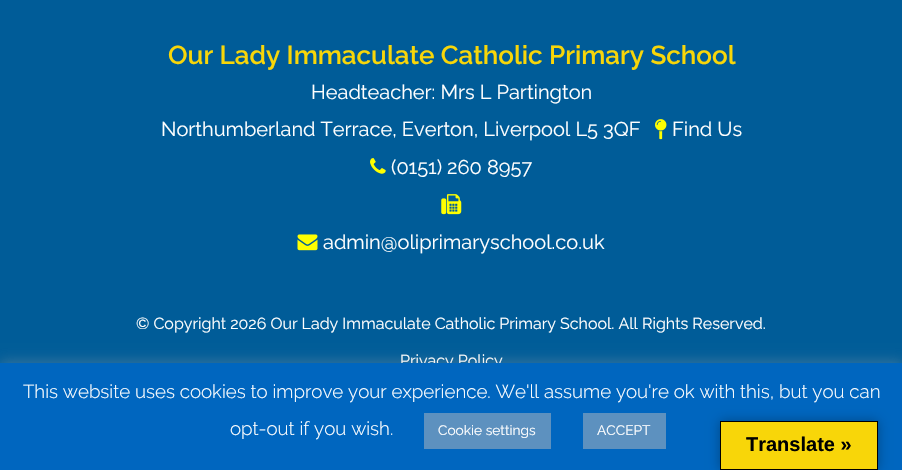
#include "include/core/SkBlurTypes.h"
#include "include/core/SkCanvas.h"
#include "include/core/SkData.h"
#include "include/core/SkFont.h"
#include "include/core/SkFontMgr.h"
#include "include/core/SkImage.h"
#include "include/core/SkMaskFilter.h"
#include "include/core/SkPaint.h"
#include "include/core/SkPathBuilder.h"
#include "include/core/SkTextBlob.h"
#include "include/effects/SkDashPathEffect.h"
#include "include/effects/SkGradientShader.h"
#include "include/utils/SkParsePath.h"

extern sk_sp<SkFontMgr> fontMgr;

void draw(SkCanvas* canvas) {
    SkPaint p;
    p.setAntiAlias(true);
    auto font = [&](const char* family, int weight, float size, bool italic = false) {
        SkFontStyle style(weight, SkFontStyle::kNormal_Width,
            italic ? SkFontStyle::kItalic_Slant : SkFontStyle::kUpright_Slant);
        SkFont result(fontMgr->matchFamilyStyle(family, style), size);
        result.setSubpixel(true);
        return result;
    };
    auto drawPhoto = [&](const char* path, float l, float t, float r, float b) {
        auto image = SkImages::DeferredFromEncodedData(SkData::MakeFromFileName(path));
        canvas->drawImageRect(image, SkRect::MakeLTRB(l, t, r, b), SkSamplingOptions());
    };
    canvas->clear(0xFF005C98);
    auto font1 = font("Raleway", 600, 26);
    p.setColor(0xFFF8D609);
    canvas->drawString("Our Lady Immaculate Catholic Primary School", 168, 64, font1, p);
    auto font2 = font("Raleway", 400, 20);
    p.setColor(0xFFFFFFFF);
    canvas->drawString("Headteacher: Mrs L Partington", 311, 99, font2, p);
    canvas->drawString("Northumberland Terrace, Everton, Liverpool L5 3QF", 161, 136, font2, p);
    drawPhoto("media/1.png", 655, 119, 667, 140);
    canvas->drawString("Find Us", 672, 136, font2, p);
    drawPhoto("media/2.png", 370, 158, 386, 174);
    canvas->drawString("(0151) 260 8957", 391, 174, font2, p);
    drawPhoto("media/3.png", 441, 194, 462, 215);
    drawPhoto("media/4.png", 297, 234, 318, 251);
    canvas->drawString("admin@oliprimaryschool.co.uk", 323, 249, font2, p);
    auto font3 = font("Raleway", 400, 16);
    canvas->drawString("© Copyright 2026 Our Lady Immaculate Catholic Primary School. All Rights Reserved.", 136, 329, font3, p);
    canvas->drawString("Privacy Policy", 400, 366, font3, p);
    p.setColor(0x4DACABAB);
    p.setMaskFilter(SkMaskFilter::MakeBlur(kNormal_SkBlurStyle, 6));
    canvas->drawRect(SkRect::MakeLTRB(0, 361, 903, 469), p);
    p.setMaskFilter(nullptr);
    p.setColor(0xFF0066BF);
    canvas->drawRect(SkRect::MakeLTRB(0, 363, 902, 470), p);
    auto font4 = font("Raleway", 300, 18.75f);
    p.setColor(0xFFFFFFFF);
    canvas->drawString("This website uses cookies to improve your experience. We'll assume you're ok with this, but you can", 23, 398, font4, p);
    canvas->drawString("opt-out if you wish.", 230, 435, font4, p);
    p.setColor(0xFF5D91BF);
    canvas->drawRect(SkRect::MakeLTRB(424, 413, 551, 449), p);
    auto font5 = font("Raleway", 400, 13.75f);
    p.setColor(0xFFFFFFFF);
    canvas->drawString("Cookie settings", 438, 435, font5, p);
    p.setColor(0xFF5D91BF);
    canvas->drawRect(SkRect::MakeLTRB(583, 413, 666, 449), p);
    p.setColor(0xFFFFFFFF);
    canvas->drawString("ACCEPT", 597, 435, font5, p);
    p.setColor(0x4D000000);
    p.setMaskFilter(SkMaskFilter::MakeBlur(kNormal_SkBlurStyle, 5.5f));
    canvas->drawRect(SkRect::MakeLTRB(720, 421, 878, 470), p);
    p.setMaskFilter(nullptr);
    p.setColor(0xFFF8D609);
    canvas->drawRect(SkRect::MakeLTRB(720.5f, 421.5f, 877.5f, 469.5f), p);
    p.setStyle(SkPaint::kStroke_Style);
    p.setStrokeWidth(1);
    p.setColor(0xFF000000);
    canvas->drawRect(SkRect::MakeLTRB(720.5f, 421.5f, 877.5f, 469.5f), p);
    auto font6 = font("Liberation Sans", 700, 20);
    p.setStyle(SkPaint::kFill_Style);
    canvas->drawString("Translate »", 746, 451, font6, p);
}
